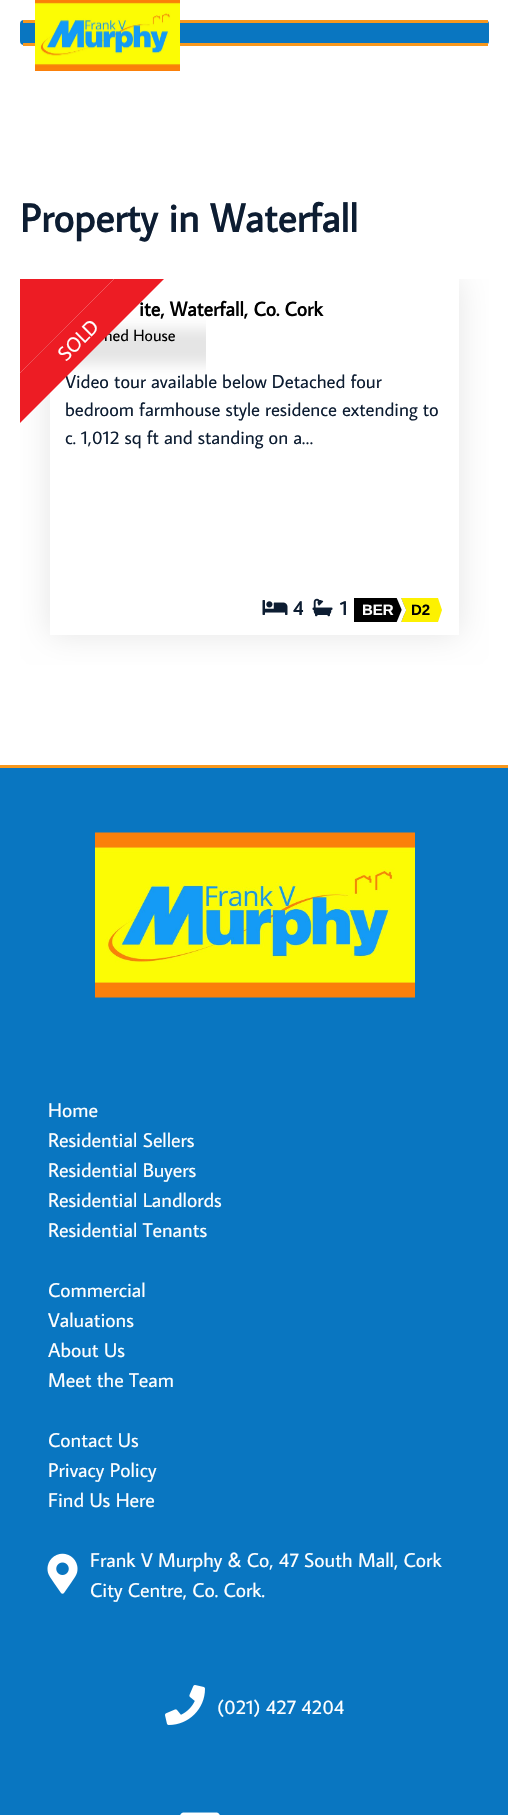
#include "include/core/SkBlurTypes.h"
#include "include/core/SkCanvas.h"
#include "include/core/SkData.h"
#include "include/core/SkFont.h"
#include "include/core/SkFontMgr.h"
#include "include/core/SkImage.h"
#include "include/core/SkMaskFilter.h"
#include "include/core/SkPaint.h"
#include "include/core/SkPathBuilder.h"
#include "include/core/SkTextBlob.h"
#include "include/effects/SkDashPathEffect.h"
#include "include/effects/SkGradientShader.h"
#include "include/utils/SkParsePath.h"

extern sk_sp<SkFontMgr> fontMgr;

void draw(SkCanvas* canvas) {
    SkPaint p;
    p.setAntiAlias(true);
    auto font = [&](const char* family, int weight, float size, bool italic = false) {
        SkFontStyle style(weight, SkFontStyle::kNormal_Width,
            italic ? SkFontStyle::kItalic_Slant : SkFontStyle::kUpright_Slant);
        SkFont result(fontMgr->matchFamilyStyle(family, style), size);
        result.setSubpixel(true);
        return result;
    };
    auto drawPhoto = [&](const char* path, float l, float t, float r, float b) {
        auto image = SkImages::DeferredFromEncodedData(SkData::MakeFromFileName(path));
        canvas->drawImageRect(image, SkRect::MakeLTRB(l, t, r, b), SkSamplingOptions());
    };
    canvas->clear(0xFFFFFFFF);
    p.setColor(0xFF0976C1);
    canvas->drawRoundRect(SkRect::MakeLTRB(20, 20, 489, 45), 4, 4, p);
    p.setColor(0xFFF8981D);
    canvas->drawRect(SkRect::MakeLTRB(23, 20, 488, 23), p);
    canvas->drawRect(SkRect::MakeLTRB(23, 43, 488, 46), p);
    drawPhoto("media/1.png", 35, 0, 180, 71);
    auto font1 = font("Average Sans", 700, 40);
    p.setColor(0xFF0D1D32);
    canvas->drawString("Property in Waterfall", 20, 232, font1, p);
    canvas->save();
    canvas->clipRect(SkRect::MakeLTRB(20, 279, 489, 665));
    p.setColor(0x1A000000);
    p.setMaskFilter(SkMaskFilter::MakeBlur(kNormal_SkBlurStyle, 15));
    canvas->drawRect(SkRect::MakeLTRB(50, 279, 459, 635), p);
    p.setMaskFilter(nullptr);
    canvas->restore();
    p.setColor(0xFFFFFFFF);
    canvas->drawRect(SkRect::MakeLTRB(50, 279, 459, 635), p);
    auto font2 = font("Average Sans", 700, 20);
    p.setColor(0xFF000000);
    canvas->drawString("ite, Waterfall, Co. Cork", 139, 316, font2, p);
    auto font3 = font("Average Sans", 400, 16.25f);
    canvas->drawString("hed House", 104, 341, font3, p);
    auto font4 = font("Average Sans", 400, 18.75f);
    p.setColor(0xFF0D1D32);
    {
        const struct { const char* s; float x, y; } items[] = {
            {"Video tour available below Detached four", 65, 388},
            {"bedroom farmhouse style residence extending to", 65, 416},
            {"c. 1,012 sq ft and standing on a…", 65, 444},
        };
        for (auto [s, x, y] : items) {
            canvas->drawString(s, x, y, font4, p);
        }
    }
    drawPhoto("media/2.png", 262, 600, 288, 615);
    canvas->drawString("4", 293, 615, font2, p);
    drawPhoto("media/3.png", 312, 598, 333, 617);
    canvas->drawString("1", 340, 615, font2, p);
    p.setColor(0xFFFDF101);
    canvas->drawPath(SkPathBuilder().moveTo(394, 598).lineTo(438, 598).lineTo(442, 610).lineTo(438, 622).lineTo(394, 622).close().detach(), p);
    p.setColor(0xFF000000);
    canvas->drawPath(SkPathBuilder().moveTo(401, 598).lineTo(406, 610).lineTo(401, 622).lineTo(354, 622).lineTo(354, 598).close().detach(), p);
    auto font5 = font("Liberation Sans", 700, 15);
    p.setColor(0xFFFFFFFF);
    canvas->drawString("BER", 362, 615, font5, p);
    canvas->drawPath(SkPathBuilder().moveTo(401, 597.5f).lineTo(406, 610).lineTo(404.5f, 613.5f).lineTo(403.5f, 614).lineTo(396.5f, 597.5f).close().detach(), p);
    canvas->drawPath(SkPathBuilder().moveTo(403.5f, 605.5f).lineTo(404, 606).lineTo(406, 610).lineTo(401, 622.5f).lineTo(396.5f, 622.5f).close().detach(), p);
    p.setColor(0xFF000000);
    canvas->drawString("D2", 411, 615, font5, p);
    canvas->save();
    canvas->clipRect(SkRect::MakeLTRB(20, 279, 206, 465));
    p.setColor(0x1A000000);
    p.setMaskFilter(SkMaskFilter::MakeBlur(kNormal_SkBlurStyle, 6.5f));
    canvas->drawRect(SkRect::MakeLTRB(-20, 329, 219, 364), p);
    p.setMaskFilter(nullptr);
    canvas->restore();
    canvas->save();
    canvas->clipRect(SkRect::MakeLTRB(20, 279, 206, 465));
    p.setColor(0xFFED1C24);
    canvas->drawPath(SkPathBuilder().moveTo(-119, 399).lineTo(-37, 480).lineTo(35, 408).lineTo(-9, 452).lineTo(-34, 427).lineTo(165, 228).lineTo(190, 252).lineTo(218, 224).lineTo(137, 143).close().detach(), p);
    canvas->drawPath(SkPathBuilder().moveTo(-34, 427).lineTo(165, 228).lineTo(190, 253).lineTo(-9, 452).close().detach(), p);
    canvas->restore();
    auto font6 = font("Average Sans", 400, 20);
    p.setColor(0xFFFFFFFF);
    canvas->save();
    canvas->rotate(-45, 66, 362);
    canvas->drawString("SOLD", 66, 362, font6, p);
    canvas->restore();
    p.setColor(0xFF0976C1);
    canvas->drawRect(SkRect::MakeLTRB(0, 768, 508, 1815), p);
    p.setColor(0xFFF8981D);
    canvas->drawRect(SkRect::MakeLTRB(0, 765, 508, 768), p);
    drawPhoto("media/4.png", 95, 832, 415, 998);
    p.setColor(0xFFFFFFFF);
    {
        const struct { const char* s; float x, y; } items[] = {
            {"Home", 48, 1117},
            {"Residential Sellers", 48, 1147},
            {"Residential Buyers", 48, 1177},
            {"Residential Landlords", 48, 1207},
            {"Residential Tenants", 48, 1237},
            {"Commercial", 48, 1297},
            {"Valuations", 48, 1327},
            {"About Us", 48, 1357},
            {"Meet the Team", 48, 1387},
            {"Contact Us", 48, 1447},
            {"Privacy Policy", 48, 1477},
            {"Find Us Here", 48, 1507},
        };
        for (auto [s, x, y] : items) {
            canvas->drawString(s, x, y, font6, p);
        }
    }
    drawPhoto("media/5.png", 47, 1553, 78, 1594);
    canvas->drawString("Frank V Murphy & Co, 47 South Mall, Cork", 90, 1567, font6, p);
    canvas->drawString("City Centre, Co. Cork.", 90, 1597, font6, p);
    drawPhoto("media/6.png", 165, 1685, 205, 1725);
    canvas->drawString("(021) 427 4204", 217, 1714, font6, p);
    drawPhoto("media/7.png", 180, 1812, 220, 1815);
}
